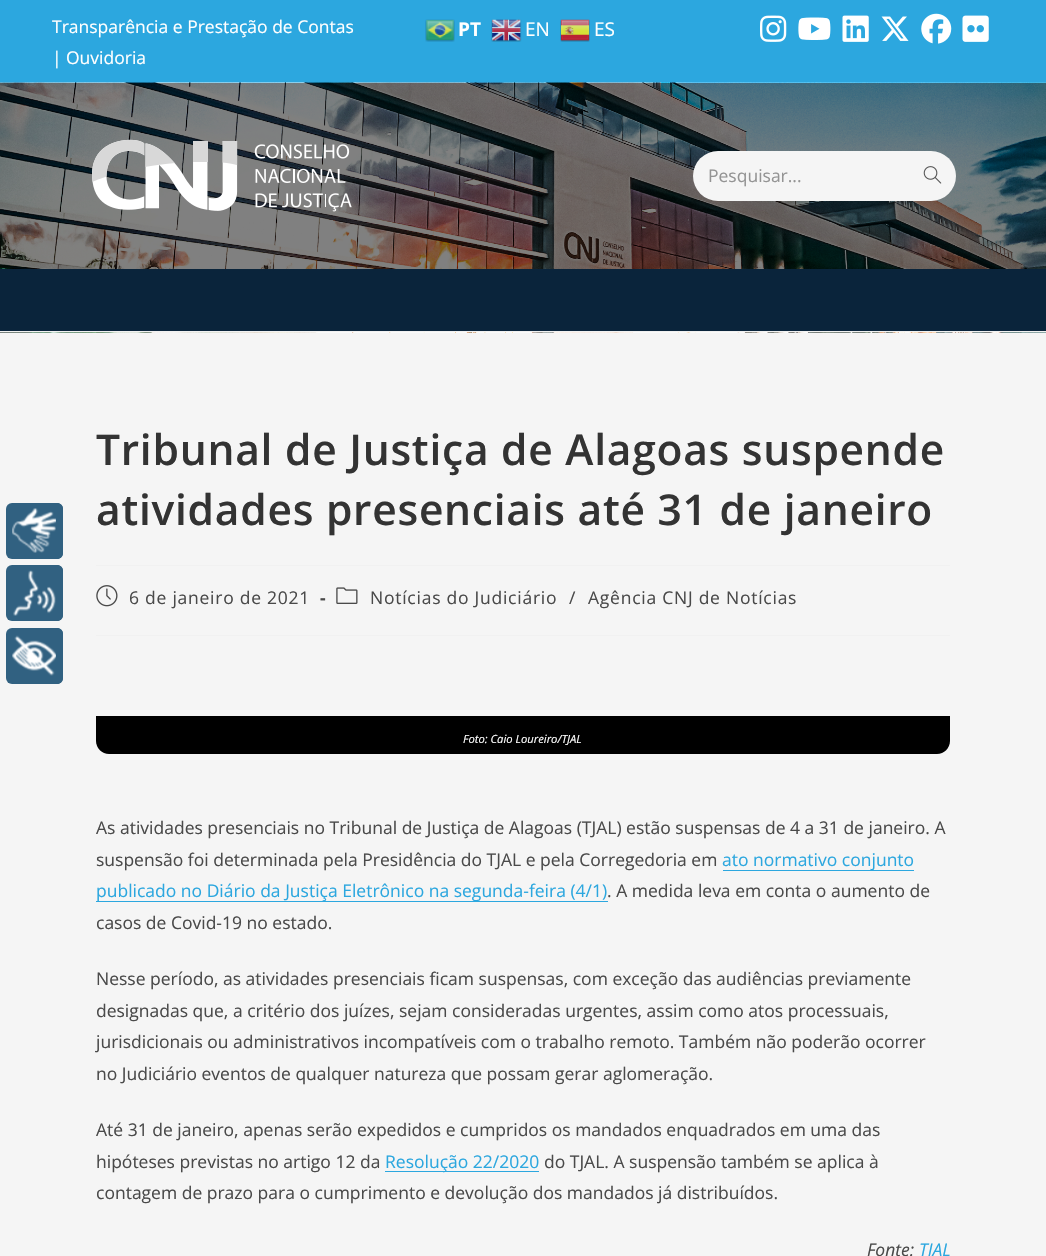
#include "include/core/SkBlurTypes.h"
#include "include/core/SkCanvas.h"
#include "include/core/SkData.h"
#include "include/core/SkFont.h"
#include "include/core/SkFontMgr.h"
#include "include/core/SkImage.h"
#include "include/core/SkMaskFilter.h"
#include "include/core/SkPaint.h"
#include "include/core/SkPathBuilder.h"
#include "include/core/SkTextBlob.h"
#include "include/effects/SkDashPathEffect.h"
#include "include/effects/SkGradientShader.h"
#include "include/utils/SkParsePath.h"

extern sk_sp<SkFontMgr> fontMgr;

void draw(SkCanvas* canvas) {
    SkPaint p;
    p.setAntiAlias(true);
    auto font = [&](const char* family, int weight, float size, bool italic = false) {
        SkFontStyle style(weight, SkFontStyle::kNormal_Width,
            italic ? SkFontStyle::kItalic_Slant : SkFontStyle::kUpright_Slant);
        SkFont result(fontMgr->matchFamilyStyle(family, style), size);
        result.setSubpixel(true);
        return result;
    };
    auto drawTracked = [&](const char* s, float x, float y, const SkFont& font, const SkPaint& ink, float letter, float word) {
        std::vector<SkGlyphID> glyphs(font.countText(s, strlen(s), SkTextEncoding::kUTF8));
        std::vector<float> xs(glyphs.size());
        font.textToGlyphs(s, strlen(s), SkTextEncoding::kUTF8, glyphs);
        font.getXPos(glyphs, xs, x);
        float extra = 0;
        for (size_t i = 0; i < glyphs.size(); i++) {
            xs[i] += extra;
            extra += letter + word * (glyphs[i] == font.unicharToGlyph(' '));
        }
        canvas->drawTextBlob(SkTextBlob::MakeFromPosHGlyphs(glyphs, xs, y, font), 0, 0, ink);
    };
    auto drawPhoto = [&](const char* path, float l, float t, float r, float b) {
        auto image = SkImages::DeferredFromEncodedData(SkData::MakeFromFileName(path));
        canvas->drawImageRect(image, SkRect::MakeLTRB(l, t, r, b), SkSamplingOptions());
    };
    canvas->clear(0xFFF5F5F5);
    p.setColor(0xFF316181);
    canvas->drawRoundRect(SkRect::MakeLTRB(6, 503, 63, 559), 6, 6, p);
    drawPhoto("media/1.png", 12, 508, 56, 553);
    canvas->drawPath(SkPathBuilder().moveTo(56, 503).lineTo(57, 503).cubicTo(60.5f, 503, 63, 505.5f, 63, 509).lineTo(63, 553).cubicTo(63, 556.5f, 60.5f, 559, 57, 559).lineTo(56, 559).close().detach(), p);
    canvas->drawRoundRect(SkRect::MakeLTRB(6, 565, 63, 621), 6, 6, p);
    drawPhoto("media/2.png", 13, 570, 56, 616);
    canvas->drawPath(SkPathBuilder().moveTo(56, 565).lineTo(57, 565).cubicTo(60.5f, 565, 63, 567.5f, 63, 571).lineTo(63, 615).cubicTo(63, 618.5f, 60.5f, 621, 57, 621).lineTo(56, 621).close().detach(), p);
    canvas->drawRoundRect(SkRect::MakeLTRB(6, 628, 63, 684), 6, 6, p);
    drawPhoto("media/3.png", 12, 635, 56, 676);
    canvas->drawPath(SkPathBuilder().moveTo(56, 628).lineTo(57, 628).cubicTo(60.5f, 628, 63, 630.5f, 63, 634).lineTo(63, 678).cubicTo(63, 681.5f, 60.5f, 684, 57, 684).lineTo(56, 684).close().detach(), p);
    p.setColor(0xFF2CA7DF);
    canvas->drawRect(SkRect::MakeLTRB(0, 0, 1046, 83), p);
    auto font1 = font("Open Sans", 400, 17.5f);
    p.setColor(0xFFFFFFFF);
    {
        const struct { const char* s; float x, y; } items[] = {
            {"Transparência e Prestação de Contas", 52, 33},
            {"|", 52, 64},
            {"Ouvidoria", 66, 64},
        };
        for (auto [s, x, y] : items) {
            canvas->drawString(s, x, y, font1, p);
        }
    }
    drawPhoto("media/4.png", 425, 19, 455, 42);
    auto font2 = font("Open Sans", 700, 19);
    canvas->drawString("PT", 458, 36, font2, p);
    drawPhoto("media/5.png", 491, 19, 522, 42);
    auto font3 = font("Open Sans", 400, 19);
    canvas->drawString("EN", 525, 36, font3, p);
    drawPhoto("media/6.png", 560, 19, 590, 42);
    canvas->drawString("ES", 594, 36, font3, p);
    drawPhoto("media/7.png", 760, 15, 787, 42);
    drawPhoto("media/8.png", 798, 17, 831, 40);
    drawPhoto("media/9.png", 842, 15, 869, 42);
    drawPhoto("media/10.png", 881, 16, 909, 41);
    drawPhoto("media/11.png", 921, 13, 952, 44);
    drawPhoto("media/12.png", 962, 15, 989, 42);
    drawPhoto("media/13.png", 0, 82, 1046, 333);
    p.setColor(0xFFF1F1F1);
    canvas->drawRect(SkRect::MakeLTRB(0, 331, 1046, 332), p);
    drawPhoto("media/14.png", 92, 139, 352, 212);
    p.setColor(0xFFF5F5F5);
    canvas->drawRoundRect(SkRect::MakeLTRB(693, 151, 956, 201), 25, 25, p);
    p.setColor(0xFF949494);
    canvas->drawString("Pesquisar...", 708, 182, font1, p);
    drawPhoto("media/15.png", 923, 166, 942, 184);
    p.setColor(0xFF0A243B);
    canvas->drawRect(SkRect::MakeLTRB(0, 269, 1046, 331), p);
    p.setColor(0xFFF1F1F1);
    canvas->drawRect(SkRect::MakeLTRB(96, 565, 950, 566), p);
    auto font4 = font("Open Sans", 600, 42.5f);
    p.setColor(0xFF333333);
    drawTracked("Tribunal de Justiça de Alagoas suspende", 96, 465, font4, p, 0.75f, 0);
    drawTracked("atividades presenciais até 31 de janeiro", 96, 525, font4, p, 0.75f, 0);
    p.setColor(0xFFF1F1F1);
    canvas->drawRect(SkRect::MakeLTRB(96, 635, 950, 636), p);
    drawPhoto("media/16.png", 96, 585, 118, 607);
    p.setColor(0xFF4A4A4A);
    drawTracked("6 de janeiro de 2021", 129, 604, font1, p, 0.75f, 0);
    auto font5 = font("Open Sans", 700, 17.5f);
    drawTracked("-", 320, 604, font5, p, 0.75f, 0);
    drawPhoto("media/17.png", 336, 587, 358, 604);
    {
        const struct { const char* s; float x, y; } items[] = {
            {"Notícias do Judiciário", 370, 604},
            {"/", 569, 604},
            {"Agência CNJ de Notícias", 588, 604},
        };
        for (auto [s, x, y] : items) {
            drawTracked(s, x, y, font1, p, 0.75f, 0);
        }
    }
    p.setColor(0xFF000000);
    canvas->drawPath(SkPathBuilder().moveTo(96, 716).lineTo(950, 716).lineTo(950, 741).cubicTo(950, 748, 944, 754, 937, 754).lineTo(109, 754).cubicTo(102, 754, 96, 748, 96, 741).close().detach(), p);
    auto font6 = font("Open Sans", 400, 11.25f, true);
    p.setColor(0xFFFFFFFF);
    canvas->drawString("Foto: Caio Loureiro/TJAL", 463, 743, font6, p);
    p.setColor(0xFF4A4A4A);
    canvas->drawString("As atividades presenciais no Tribunal de Justiça de Alagoas (TJAL) estão suspensas de 4 a 31 de janeiro. A", 96, 834, font1, p);
    canvas->drawString("suspensão foi determinada pela Presidência do TJAL e pela Corregedoria em", 96, 866, font1, p);
    p.setColor(0xFF2CA7DF);
    canvas->drawRect(SkRect::MakeLTRB(723, 870, 914, 871), p);
    canvas->drawString("ato normativo conjunto", 722, 866, font1, p);
    canvas->drawRect(SkRect::MakeLTRB(96, 901, 608, 902), p);
    canvas->drawString("publicado no Diário da Justiça Eletrônico na segunda-feira (4/1)", 96, 897, font1, p);
    p.setColor(0xFF4A4A4A);
    {
        const struct { const char* s; float x, y; } items[] = {
            {". A medida leva em conta o aumento de", 607, 897},
            {"casos de Covid-19 no estado.", 96, 929},
            {"Nesse período, as atividades presenciais ficam suspensas, com exceção das audiências previamente", 96, 985},
            {"designadas que, a critério dos juízes, sejam consideradas urgentes, assim como atos processuais,", 96, 1017},
            {"jurisdicionais ou administrativos incompatíveis com o trabalho remoto. Também não poderão ocorrer", 96, 1048},
            {"no Judiciário eventos de qualquer natureza que possam gerar aglomeração.", 96, 1080},
            {"Até 31 de janeiro, apenas serão expedidos e cumpridos os mandados enquadrados em uma das", 96, 1136},
            {"hipóteses previstas no artigo 12 da", 96, 1168},
        };
        for (auto [s, x, y] : items) {
            canvas->drawString(s, x, y, font1, p);
        }
    }
    p.setColor(0xFF2CA7DF);
    canvas->drawRect(SkRect::MakeLTRB(385, 1171, 539, 1172), p);
    canvas->drawString("Resolução 22/2020", 385, 1168, font1, p);
    p.setColor(0xFF4A4A4A);
    canvas->drawString("do TJAL. A suspensão também se aplica à", 544, 1168, font1, p);
    canvas->drawString("contagem de prazo para o cumprimento e devolução dos mandados já distribuídos.", 96, 1199, font1, p);
    auto font7 = font("Open Sans", 400, 17.5f, true);
    canvas->drawString("Fonte:", 867, 1256, font7, p);
    p.setColor(0xFF2CA7DF);
    canvas->drawString("TJAL", 919, 1256, font7, p);
}
